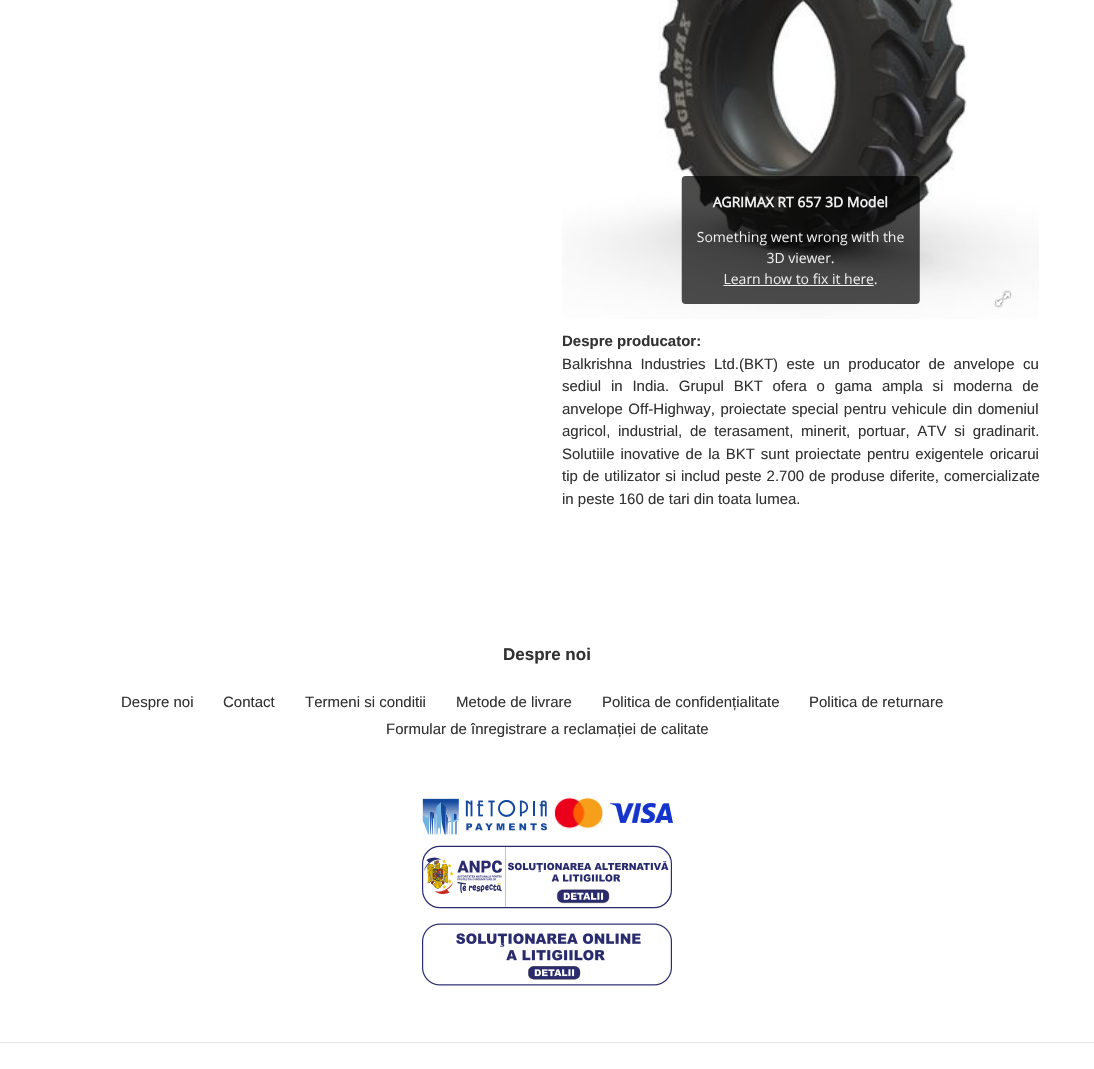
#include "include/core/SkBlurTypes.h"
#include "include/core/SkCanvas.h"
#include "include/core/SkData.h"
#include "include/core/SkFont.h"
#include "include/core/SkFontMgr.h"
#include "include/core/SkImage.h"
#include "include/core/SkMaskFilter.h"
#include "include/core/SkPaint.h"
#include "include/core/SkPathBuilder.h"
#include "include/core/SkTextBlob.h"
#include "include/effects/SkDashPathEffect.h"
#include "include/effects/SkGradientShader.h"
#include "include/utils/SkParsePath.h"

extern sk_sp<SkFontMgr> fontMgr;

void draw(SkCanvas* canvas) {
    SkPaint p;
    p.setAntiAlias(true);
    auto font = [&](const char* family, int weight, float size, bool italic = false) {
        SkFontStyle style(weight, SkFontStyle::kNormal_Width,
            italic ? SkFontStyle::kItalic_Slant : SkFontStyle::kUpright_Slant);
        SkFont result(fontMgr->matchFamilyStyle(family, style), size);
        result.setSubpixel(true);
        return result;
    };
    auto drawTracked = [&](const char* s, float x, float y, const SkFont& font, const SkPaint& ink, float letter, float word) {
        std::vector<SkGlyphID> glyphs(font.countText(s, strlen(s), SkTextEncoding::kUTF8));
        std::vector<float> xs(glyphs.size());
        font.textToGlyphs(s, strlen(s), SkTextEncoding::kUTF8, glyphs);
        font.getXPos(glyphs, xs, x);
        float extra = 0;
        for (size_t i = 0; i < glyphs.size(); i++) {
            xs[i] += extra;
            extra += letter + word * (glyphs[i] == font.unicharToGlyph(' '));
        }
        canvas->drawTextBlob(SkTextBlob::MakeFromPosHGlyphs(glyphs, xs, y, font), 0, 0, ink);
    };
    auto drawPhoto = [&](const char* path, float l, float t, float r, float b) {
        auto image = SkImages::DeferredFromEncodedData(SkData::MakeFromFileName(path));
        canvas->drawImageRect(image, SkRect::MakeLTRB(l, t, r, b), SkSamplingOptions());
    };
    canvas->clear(0xFFFFFFFF);
    drawPhoto("media/1.png", 562, 0, 1039, 319);
    auto font1 = font("Liberation Sans", 700, 15);
    p.setColor(0xFF333232);
    canvas->drawString("Despre producator:", 562, 346, font1, p);
    auto font2 = font("Liberation Sans", 400, 15);
    drawTracked("Balkrishna Industries Ltd.(BKT) este un producator de anvelope cu", 562, 369, font2, p, 0, 4.25f);
    drawTracked("sediul in India. Grupul BKT ofera o gama ampla si moderna de", 562, 391, font2, p, 0, 5.6f);
    drawTracked("anvelope Off-Highway, proiectate special pentru vehicule din domeniul", 562, 414, font2, p, 0, 1.25f);
    drawTracked("agricol, industrial, de terasament, minerit, portuar, ATV si gradinarit.", 562, 436, font2, p, 0, 3.5f);
    drawTracked("Solutiile inovative de la BKT sunt proiectate pentru exigentele oricarui", 562, 459, font2, p, 0, 1.75f);
    drawTracked("tip de utilizator si includ peste 2.700 de produse diferite, comercializate", 562, 481, font2, p, 0, 0.75f);
    canvas->drawString("in peste 160 de tari din toata lumea.", 562, 504, font2, p);
    auto font3 = font("Liberation Sans", 700, 17);
    canvas->drawString("Despre noi", 503, 660, font3, p);
    {
        const struct { const char* s; float x, y; } items[] = {
            {"Despre noi", 121, 707},
            {"Contact", 223, 707},
            {"Termeni si conditii", 305, 707},
            {"Metode de livrare", 456, 707},
            {"Politica de confidențialitate", 602, 707},
            {"Politica de returnare", 809, 707},
            {"Formular de înregistrare a reclamației de calitate", 386, 734},
        };
        for (auto [s, x, y] : items) {
            canvas->drawString(s, x, y, font2, p);
        }
    }
    drawPhoto("media/2.png", 422, 798, 547, 835);
    drawPhoto("media/3.png", 554, 797, 604, 829);
    drawPhoto("media/4.png", 610, 803, 673, 823);
    drawPhoto("media/5.png", 422, 845, 672, 909);
    drawPhoto("media/6.png", 422, 923, 672, 986);
    p.setColor(0xFFE6E6E6);
    canvas->drawRect(SkRect::MakeLTRB(0, 1042, 1094, 1043), p);
}
